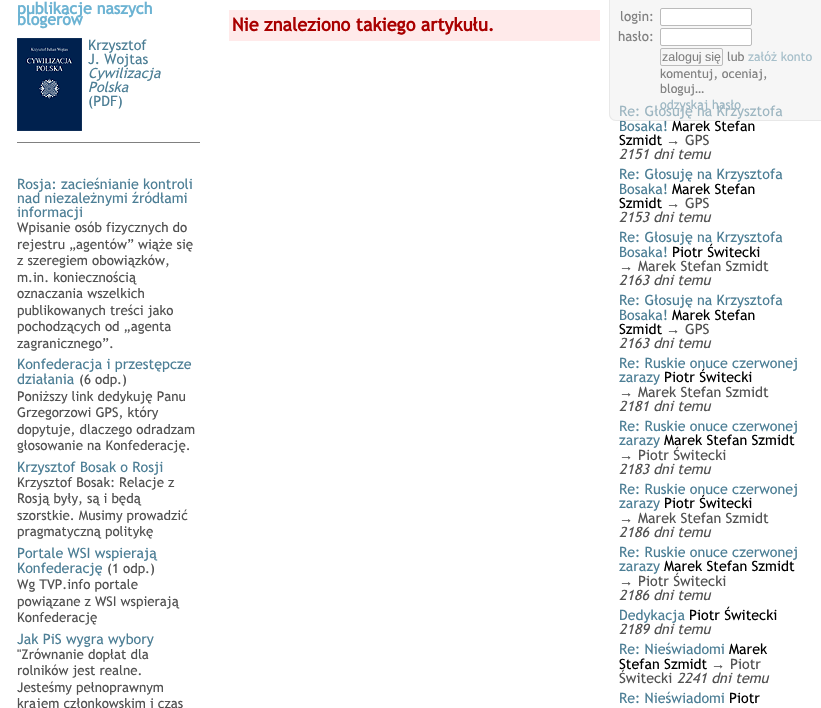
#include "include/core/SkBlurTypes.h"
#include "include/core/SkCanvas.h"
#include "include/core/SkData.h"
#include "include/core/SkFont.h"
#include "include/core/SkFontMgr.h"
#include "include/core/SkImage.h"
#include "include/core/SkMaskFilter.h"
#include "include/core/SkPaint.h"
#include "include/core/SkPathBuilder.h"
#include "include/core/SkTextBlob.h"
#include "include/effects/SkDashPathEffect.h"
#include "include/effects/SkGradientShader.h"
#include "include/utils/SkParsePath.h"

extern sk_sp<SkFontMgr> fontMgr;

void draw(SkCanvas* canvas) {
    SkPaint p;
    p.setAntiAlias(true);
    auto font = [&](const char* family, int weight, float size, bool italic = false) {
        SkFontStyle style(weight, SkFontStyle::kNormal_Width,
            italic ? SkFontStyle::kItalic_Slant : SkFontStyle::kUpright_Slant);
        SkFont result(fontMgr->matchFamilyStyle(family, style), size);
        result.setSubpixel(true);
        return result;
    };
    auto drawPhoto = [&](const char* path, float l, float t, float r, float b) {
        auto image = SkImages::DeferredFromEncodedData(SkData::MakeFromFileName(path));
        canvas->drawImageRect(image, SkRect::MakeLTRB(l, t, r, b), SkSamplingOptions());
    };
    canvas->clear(0xFFFFFFFF);
    p.setColor(0xFF808080);
    canvas->drawRect(SkRect::MakeLTRB(17, 142, 200, 143), p);
    auto font1 = font("Trebuchet MS", 700, 16);
    p.setColor(0xFF6CB3D3);
    canvas->drawString("publikacje naszych", 17, 14, font1, p);
    canvas->drawString("blogerów", 17, 25, font1, p);
    drawPhoto("media/1.png", 17, 38, 82, 131);
    auto font2 = font("Trebuchet MS", 400, 14.25f);
    p.setColor(0xFF4C7E95);
    canvas->drawString("Krzysztof", 88, 50, font2, p);
    canvas->drawString("J. Wojtas", 88, 64, font2, p);
    auto font3 = font("Trebuchet MS", 400, 14.25f, true);
    canvas->drawString("Cywilizacja", 88, 78, font3, p);
    canvas->drawString("Polska", 88, 92, font3, p);
    {
        const struct { const char* s; float x, y; } items[] = {
            {"(PDF)", 88, 106},
            {"Rosja: zacieśnianie kontroli", 17, 189},
            {"nad niezależnymi źródłami", 17, 203},
            {"informacji", 17, 217},
        };
        for (auto [s, x, y] : items) {
            canvas->drawString(s, x, y, font2, p);
        }
    }
    auto font4 = font("Trebuchet MS", 400, 13.4f);
    p.setColor(0xFF525252);
    {
        const struct { const char* s; float x, y; } items[] = {
            {"Wpisanie osób fizycznych do", 17, 232},
            {"rejestru „agentów” wiąże się", 17, 249},
            {"z szeregiem obowiązków,", 17, 265},
            {"m.in. koniecznością", 17, 282},
            {"oznaczania wszelkich", 17, 298},
            {"publikowanych treści jako", 17, 315},
            {"pochodzących od „agenta", 17, 331},
            {"zagranicznego”.", 17, 348},
        };
        for (auto [s, x, y] : items) {
            canvas->drawString(s, x, y, font4, p);
        }
    }
    p.setColor(0xFF4C7E95);
    canvas->drawString("Konfederacja i przestępcze", 17, 369, font2, p);
    canvas->drawString("działania", 17, 384, font2, p);
    p.setColor(0xFF525252);
    {
        const struct { const char* s; float x, y; } items[] = {
            {"(6 odp.)", 79, 384},
            {"Poniższy link dedykuję Panu", 17, 401},
            {"Grzegorzowi GPS, który", 17, 417},
            {"dopytuje, dlaczego odradzam", 17, 434},
            {"głosowanie na Konfederację.", 17, 450},
        };
        for (auto [s, x, y] : items) {
            canvas->drawString(s, x, y, font4, p);
        }
    }
    p.setColor(0xFF4C7E95);
    canvas->drawString("Krzysztof Bosak o Rosji", 17, 472, font2, p);
    p.setColor(0xFF525252);
    {
        const struct { const char* s; float x, y; } items[] = {
            {"Krzysztof Bosak: Relacje z", 17, 487},
            {"Rosją były, są i będą", 17, 503},
            {"szorstkie. Musimy prowadzić", 17, 520},
            {"pragmatyczną politykę", 17, 536},
        };
        for (auto [s, x, y] : items) {
            canvas->drawString(s, x, y, font4, p);
        }
    }
    p.setColor(0xFF4C7E95);
    canvas->drawString("Portale WSI wspierają", 17, 558, font2, p);
    canvas->drawString("Konfederację", 17, 573, font2, p);
    p.setColor(0xFF525252);
    {
        const struct { const char* s; float x, y; } items[] = {
            {"(1 odp.)", 107, 573},
            {"Wg TVP.info portale", 17, 589},
            {"powiązane z WSI wspierają", 17, 606},
            {"Konfederację", 17, 622},
        };
        for (auto [s, x, y] : items) {
            canvas->drawString(s, x, y, font4, p);
        }
    }
    p.setColor(0xFF4C7E95);
    canvas->drawString("Jak PiS wygra wybory", 17, 644, font2, p);
    p.setColor(0xFF525252);
    {
        const struct { const char* s; float x, y; } items[] = {
            {"\"Zrównanie dopłat dla", 17, 659},
            {"rolników jest realne.", 17, 675},
            {"Jesteśmy pełnoprawnym", 17, 692},
            {"krajem członkowskim i czas", 17, 708},
        };
        for (auto [s, x, y] : items) {
            canvas->drawString(s, x, y, font4, p);
        }
    }
    p.setColor(0xFFFFEAEA);
    canvas->drawRect(SkRect::MakeLTRB(229, 10, 600, 41), p);
    auto font5 = font("Trebuchet MS", 700, 18.1f);
    p.setColor(0xFFA90000);
    canvas->drawString("Nie znaleziono takiego artykułu.", 232, 31, font5, p);
    p.setColor(0xFF4C7E95);
    canvas->drawString("Re: Głosuję na Krzysztofa", 619, 116, font2, p);
    canvas->drawString("Bosaka!", 619, 131, font2, p);
    p.setColor(0xFF000000);
    canvas->drawString("Marek Stefan", 672, 131, font2, p);
    canvas->drawString("Szmidt", 619, 145, font2, p);
    auto font6 = font("Liberation Sans", 400, 14.25f);
    p.setColor(0xFF525252);
    canvas->drawString("→", 666, 145, font6, p);
    canvas->drawString("GPS", 685, 145, font2, p);
    canvas->drawString("2151 dni temu", 619, 159, font3, p);
    p.setColor(0xFF4C7E95);
    canvas->drawString("Re: Głosuję na Krzysztofa", 619, 179, font2, p);
    canvas->drawString("Bosaka!", 619, 194, font2, p);
    p.setColor(0xFF000000);
    canvas->drawString("Marek Stefan", 672, 194, font2, p);
    canvas->drawString("Szmidt", 619, 208, font2, p);
    p.setColor(0xFF525252);
    canvas->drawString("→", 666, 208, font6, p);
    canvas->drawString("GPS", 685, 208, font2, p);
    canvas->drawString("2153 dni temu", 619, 222, font3, p);
    p.setColor(0xFF4C7E95);
    canvas->drawString("Re: Głosuję na Krzysztofa", 619, 242, font2, p);
    canvas->drawString("Bosaka!", 619, 257, font2, p);
    p.setColor(0xFF000000);
    canvas->drawString("Piotr Świtecki", 672, 257, font2, p);
    p.setColor(0xFF525252);
    canvas->drawString("→", 619, 271, font6, p);
    canvas->drawString("Marek Stefan Szmidt", 638, 271, font2, p);
    canvas->drawString("2163 dni temu", 619, 285, font3, p);
    p.setColor(0xFF4C7E95);
    canvas->drawString("Re: Głosuję na Krzysztofa", 619, 305, font2, p);
    canvas->drawString("Bosaka!", 619, 320, font2, p);
    p.setColor(0xFF000000);
    canvas->drawString("Marek Stefan", 672, 320, font2, p);
    canvas->drawString("Szmidt", 619, 334, font2, p);
    p.setColor(0xFF525252);
    canvas->drawString("→", 666, 334, font6, p);
    canvas->drawString("GPS", 685, 334, font2, p);
    canvas->drawString("2163 dni temu", 619, 348, font3, p);
    p.setColor(0xFF4C7E95);
    canvas->drawString("Re: Ruskie onuce czerwonej", 619, 368, font2, p);
    canvas->drawString("zarazy", 619, 382, font2, p);
    p.setColor(0xFF000000);
    canvas->drawString("Piotr Świtecki", 664, 382, font2, p);
    p.setColor(0xFF525252);
    canvas->drawString("→", 619, 397, font6, p);
    canvas->drawString("Marek Stefan Szmidt", 638, 397, font2, p);
    canvas->drawString("2181 dni temu", 619, 411, font3, p);
    p.setColor(0xFF4C7E95);
    canvas->drawString("Re: Ruskie onuce czerwonej", 619, 431, font2, p);
    canvas->drawString("zarazy", 619, 445, font2, p);
    p.setColor(0xFF000000);
    canvas->drawString("Marek Stefan Szmidt", 664, 445, font2, p);
    p.setColor(0xFF525252);
    canvas->drawString("→", 619, 460, font6, p);
    canvas->drawString("Piotr Świtecki", 638, 460, font2, p);
    canvas->drawString("2183 dni temu", 619, 474, font3, p);
    p.setColor(0xFF4C7E95);
    canvas->drawString("Re: Ruskie onuce czerwonej", 619, 494, font2, p);
    canvas->drawString("zarazy", 619, 508, font2, p);
    p.setColor(0xFF000000);
    canvas->drawString("Piotr Świtecki", 664, 508, font2, p);
    p.setColor(0xFF525252);
    canvas->drawString("→", 619, 523, font6, p);
    canvas->drawString("Marek Stefan Szmidt", 638, 523, font2, p);
    canvas->drawString("2186 dni temu", 619, 537, font3, p);
    p.setColor(0xFF4C7E95);
    canvas->drawString("Re: Ruskie onuce czerwonej", 619, 557, font2, p);
    canvas->drawString("zarazy", 619, 571, font2, p);
    p.setColor(0xFF000000);
    canvas->drawString("Marek Stefan Szmidt", 664, 571, font2, p);
    p.setColor(0xFF525252);
    canvas->drawString("→", 619, 586, font6, p);
    canvas->drawString("Piotr Świtecki", 638, 586, font2, p);
    canvas->drawString("2186 dni temu", 619, 600, font3, p);
    p.setColor(0xFF4C7E95);
    canvas->drawString("Dedykacja", 619, 620, font2, p);
    p.setColor(0xFF000000);
    canvas->drawString("Piotr Świtecki", 689, 620, font2, p);
    p.setColor(0xFF525252);
    canvas->drawString("2189 dni temu", 619, 634, font3, p);
    p.setColor(0xFF4C7E95);
    canvas->drawString("Re: Nieświadomi", 619, 654, font2, p);
    p.setColor(0xFF000000);
    canvas->drawString("Marek", 729, 654, font2, p);
    canvas->drawString("Stefan Szmidt", 619, 669, font2, p);
    p.setColor(0xFF525252);
    canvas->drawString("→", 711, 669, font6, p);
    canvas->drawString("Piotr", 730, 669, font2, p);
    canvas->drawString("Świtecki", 619, 683, font2, p);
    canvas->drawString("2241 dni temu", 677, 683, font3, p);
    p.setColor(0xFF4C7E95);
    canvas->drawString("Re: Nieświadomi", 619, 703, font2, p);
    p.setColor(0xFF000000);
    canvas->drawString("Piotr", 729, 703, font2, p);
    p.setColor(0x80EDEDED);
    canvas->drawPath(SkPathBuilder().moveTo(609, 0).lineTo(821, 0).lineTo(821, 121).lineTo(616, 121).cubicTo(612, 121, 609, 118, 609, 114).close().detach(), p);
    p.setColor(0x80DADADA);
    canvas->drawPath(SkPathBuilder(SkPathFillType::kEvenOdd).moveTo(609, 0).lineTo(821, 0).lineTo(821, 121).lineTo(616, 121).cubicTo(612, 121, 609, 118, 609, 114).close().moveTo(610, 0).lineTo(821, 0).lineTo(821, 120).lineTo(616, 120).cubicTo(613, 120, 610, 117, 610, 114).close().detach(), p);
    p.setColor(0xFF808080);
    canvas->drawString("login:", 620, 21, font4, p);
    p.setColor(0xFFFFFFFF);
    canvas->drawRoundRect(SkRect::MakeLTRB(660.5f, 8.5f, 751.5f, 25.5f), 1.5f, 1.5f, p);
    p.setStyle(SkPaint::kStroke_Style);
    p.setStrokeWidth(1);
    p.setColor(0xFFBBBBBB);
    canvas->drawRoundRect(SkRect::MakeLTRB(660.5f, 8.5f, 751.5f, 25.5f), 1.5f, 1.5f, p);
    p.setStyle(SkPaint::kFill_Style);
    p.setColor(0xFF808080);
    canvas->drawString("hasło:", 618, 41, font4, p);
    p.setColor(0xFFFFFFFF);
    canvas->drawRoundRect(SkRect::MakeLTRB(660.5f, 28.5f, 751.5f, 45.5f), 1.5f, 1.5f, p);
    p.setStyle(SkPaint::kStroke_Style);
    p.setColor(0xFFBBBBBB);
    canvas->drawRoundRect(SkRect::MakeLTRB(660.5f, 28.5f, 751.5f, 45.5f), 1.5f, 1.5f, p);
    canvas->drawRoundRect(SkRect::MakeLTRB(660.5f, 48.5f, 722.5f, 65.5f), 1.5f, 1.5f, p);
    auto font7 = font("Liberation Sans", 400, 12.5f);
    p.setStyle(SkPaint::kFill_Style);
    p.setColor(0xFF808080);
    canvas->drawString("zaloguj się", 662, 61, font7, p);
    auto font8 = font("Trebuchet MS", 400, 12.5f);
    canvas->drawString("lub", 727, 61, font8, p);
    p.setColor(0xFFA6BFCA);
    canvas->drawString("załóż konto", 748, 61, font8, p);
    p.setColor(0xFF808080);
    canvas->drawString("komentuj, oceniaj,", 660, 78, font8, p);
    canvas->drawString("bloguj…", 660, 93, font8, p);
    p.setColor(0xFF9DB7C3);
    canvas->drawString("odzyskaj hasło", 660, 109, font8, p);
}
